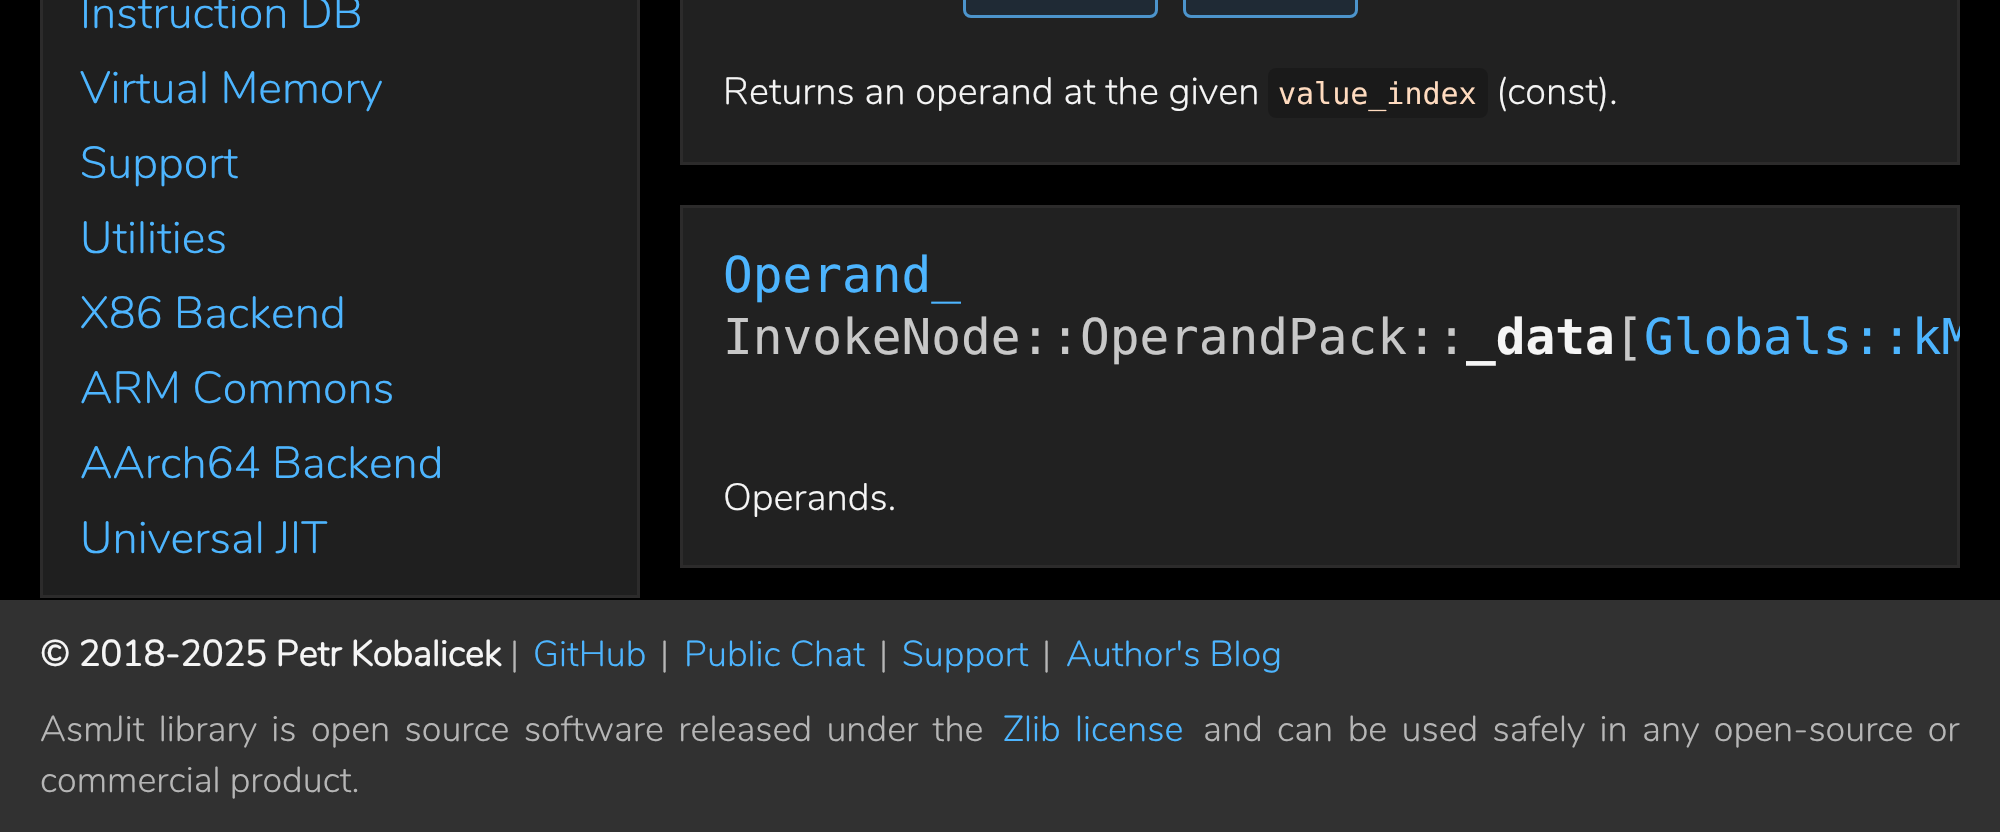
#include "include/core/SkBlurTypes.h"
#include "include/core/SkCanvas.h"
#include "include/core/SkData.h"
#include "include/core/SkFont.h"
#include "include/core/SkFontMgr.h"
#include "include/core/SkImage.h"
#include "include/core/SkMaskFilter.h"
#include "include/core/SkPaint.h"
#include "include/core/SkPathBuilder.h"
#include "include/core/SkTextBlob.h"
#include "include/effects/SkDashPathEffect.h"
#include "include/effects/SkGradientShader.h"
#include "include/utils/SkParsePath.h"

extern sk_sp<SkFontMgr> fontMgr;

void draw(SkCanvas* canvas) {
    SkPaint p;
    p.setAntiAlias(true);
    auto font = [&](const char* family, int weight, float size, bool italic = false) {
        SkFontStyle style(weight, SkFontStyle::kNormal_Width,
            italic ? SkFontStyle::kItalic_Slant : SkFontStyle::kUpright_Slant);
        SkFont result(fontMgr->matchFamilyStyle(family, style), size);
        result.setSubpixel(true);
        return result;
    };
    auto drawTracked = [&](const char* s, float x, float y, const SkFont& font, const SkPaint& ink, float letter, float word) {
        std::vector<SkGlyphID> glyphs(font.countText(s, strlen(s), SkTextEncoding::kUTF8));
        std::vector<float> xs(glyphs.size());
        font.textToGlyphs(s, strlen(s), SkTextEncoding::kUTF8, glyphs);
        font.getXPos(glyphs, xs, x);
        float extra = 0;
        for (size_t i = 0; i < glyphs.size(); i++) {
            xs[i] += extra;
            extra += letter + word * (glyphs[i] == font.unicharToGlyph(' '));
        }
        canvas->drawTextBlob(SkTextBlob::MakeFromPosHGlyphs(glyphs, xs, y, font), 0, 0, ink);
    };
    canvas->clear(0xFF000000);
    p.setColor(0xFF1F1F1F);
    canvas->drawRect(SkRect::MakeLTRB(41.5f, -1.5f, 638.5f, 596.5f), p);
    p.setStyle(SkPaint::kStroke_Style);
    p.setStrokeWidth(3);
    p.setColor(0xFF2C2B2B);
    canvas->drawRect(SkRect::MakeLTRB(41.5f, -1.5f, 638.5f, 596.5f), p);
    auto font1 = font("Nunito", 300, 45);
    p.setStyle(SkPaint::kFill_Style);
    p.setColor(0xFF4DB5FF);
    {
        const struct { const char* s; float x, y; } items[] = {
            {"Instruction DB", 80, 28},
            {"Virtual Memory", 80, 103},
            {"Support", 80, 178},
            {"Utilities", 80, 253},
            {"X86 Backend", 80, 328},
            {"ARM Commons", 80, 403},
            {"AArch64 Backend", 80, 478},
            {"Universal JIT", 80, 553},
        };
        for (auto [s, x, y] : items) {
            canvas->drawString(s, x, y, font1, p);
        }
    }
    p.setColor(0xFF212121);
    canvas->drawRect(SkRect::MakeLTRB(681.5f, -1.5f, 1958.5f, 163.5f), p);
    p.setStyle(SkPaint::kStroke_Style);
    p.setColor(0xFF2C2B2B);
    canvas->drawRect(SkRect::MakeLTRB(681.5f, -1.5f, 1958.5f, 163.5f), p);
    p.setStyle(SkPaint::kFill_Style);
    p.setColor(0xFF1F2A35);
    canvas->drawRoundRect(SkRect::MakeLTRB(964.5f, -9.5f, 1156.5f, 16.5f), 6.5f, 6.5f, p);
    p.setStyle(SkPaint::kStroke_Style);
    p.setColor(0xFF4C94CC);
    canvas->drawRoundRect(SkRect::MakeLTRB(964.5f, -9.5f, 1156.5f, 16.5f), 6.5f, 6.5f, p);
    p.setStyle(SkPaint::kFill_Style);
    p.setColor(0xFF1F2A35);
    canvas->drawRoundRect(SkRect::MakeLTRB(1184.5f, -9.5f, 1356.5f, 16.5f), 6.5f, 6.5f, p);
    p.setStyle(SkPaint::kStroke_Style);
    p.setColor(0xFF4C94CC);
    canvas->drawRoundRect(SkRect::MakeLTRB(1184.5f, -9.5f, 1356.5f, 16.5f), 6.5f, 6.5f, p);
    auto font2 = font("Nunito", 300, 38);
    p.setStyle(SkPaint::kFill_Style);
    p.setColor(0xFFF5F5F5);
    canvas->drawString("Returns an operand at the given", 723, 104, font2, p);
    p.setColor(0xFF1A1A1A);
    canvas->drawRoundRect(SkRect::MakeLTRB(1268, 68, 1488, 118), 8, 8, p);
    auto font3 = font("DejaVu Sans Mono", 400, 30);
    p.setColor(0xFFFFDBBF);
    canvas->drawString("value_index", 1278, 104, font3, p);
    p.setColor(0xFFF5F5F5);
    canvas->drawString("(const).", 1496, 104, font2, p);
    p.setColor(0xFF212121);
    canvas->drawRect(SkRect::MakeLTRB(681.5f, 206.5f, 1958.5f, 566.5f), p);
    p.setStyle(SkPaint::kStroke_Style);
    p.setColor(0xFF2C2B2B);
    canvas->drawRect(SkRect::MakeLTRB(681.5f, 206.5f, 1958.5f, 566.5f), p);
    auto font4 = font("DejaVu Sans Mono", 400, 49.4f);
    p.setStyle(SkPaint::kFill_Style);
    p.setColor(0xFF4DB5FF);
    canvas->drawString("Operand_", 723, 292, font4, p);
    p.setColor(0xFFC8C8C8);
    canvas->drawString("InvokeNode::OperandPack::", 723, 354, font4, p);
    auto font5 = font("DejaVu Sans Mono", 700, 49.4f);
    p.setColor(0xFFF5F5F5);
    canvas->drawString("_data", 1466, 354, font5, p);
    p.setColor(0xFFC8C8C8);
    canvas->drawString("[", 1614, 354, font4, p);
    canvas->save();
    canvas->clipRect(SkRect::MakeLTRB(680, 0, 1960, 573));
    p.setColor(0xFF4DB5FF);
    canvas->drawString("Globals::kM", 1644, 354, font4, p);
    canvas->restore();
    p.setColor(0xFFF5F5F5);
    canvas->drawString("Operands.", 723, 510, font2, p);
    p.setColor(0xFF313131);
    canvas->drawRect(SkRect::MakeLTRB(0, 600, 2000, 832), p);
    auto font6 = font("Nunito", 700, 36);
    p.setColor(0xFFF5F5F5);
    canvas->drawString("© 2018-2025 Petr Kobalicek", 40, 666, font6, p);
    auto font7 = font("Nunito", 300, 36);
    p.setColor(0xFFB6B6B6);
    canvas->drawString("|", 510, 666, font7, p);
    p.setColor(0xFF4DB5FF);
    canvas->drawString("GitHub", 533, 666, font7, p);
    p.setColor(0xFFB6B6B6);
    canvas->drawString("|", 660, 666, font7, p);
    p.setColor(0xFF4DB5FF);
    canvas->drawString("Public Chat", 684, 666, font7, p);
    p.setColor(0xFFB6B6B6);
    canvas->drawString("|", 879, 666, font7, p);
    p.setColor(0xFF4DB5FF);
    canvas->drawString("Support", 902, 666, font7, p);
    p.setColor(0xFFB6B6B6);
    canvas->drawString("|", 1042, 666, font7, p);
    p.setColor(0xFF4DB5FF);
    canvas->drawString("Author's Blog", 1066, 666, font7, p);
    p.setColor(0xFFB6B6B6);
    drawTracked("AsmJit library is open source software released under the", 40, 741, font7, p, 0, 5.25f);
    p.setColor(0xFF4DB5FF);
    drawTracked("Zlib license", 1003, 741, font7, p, 0, 5.25f);
    p.setColor(0xFFB6B6B6);
    drawTracked("and can be used safely in any open-source or", 1203, 741, font7, p, 0, 5.25f);
    canvas->drawString("commercial product.", 40, 792, font7, p);
}
